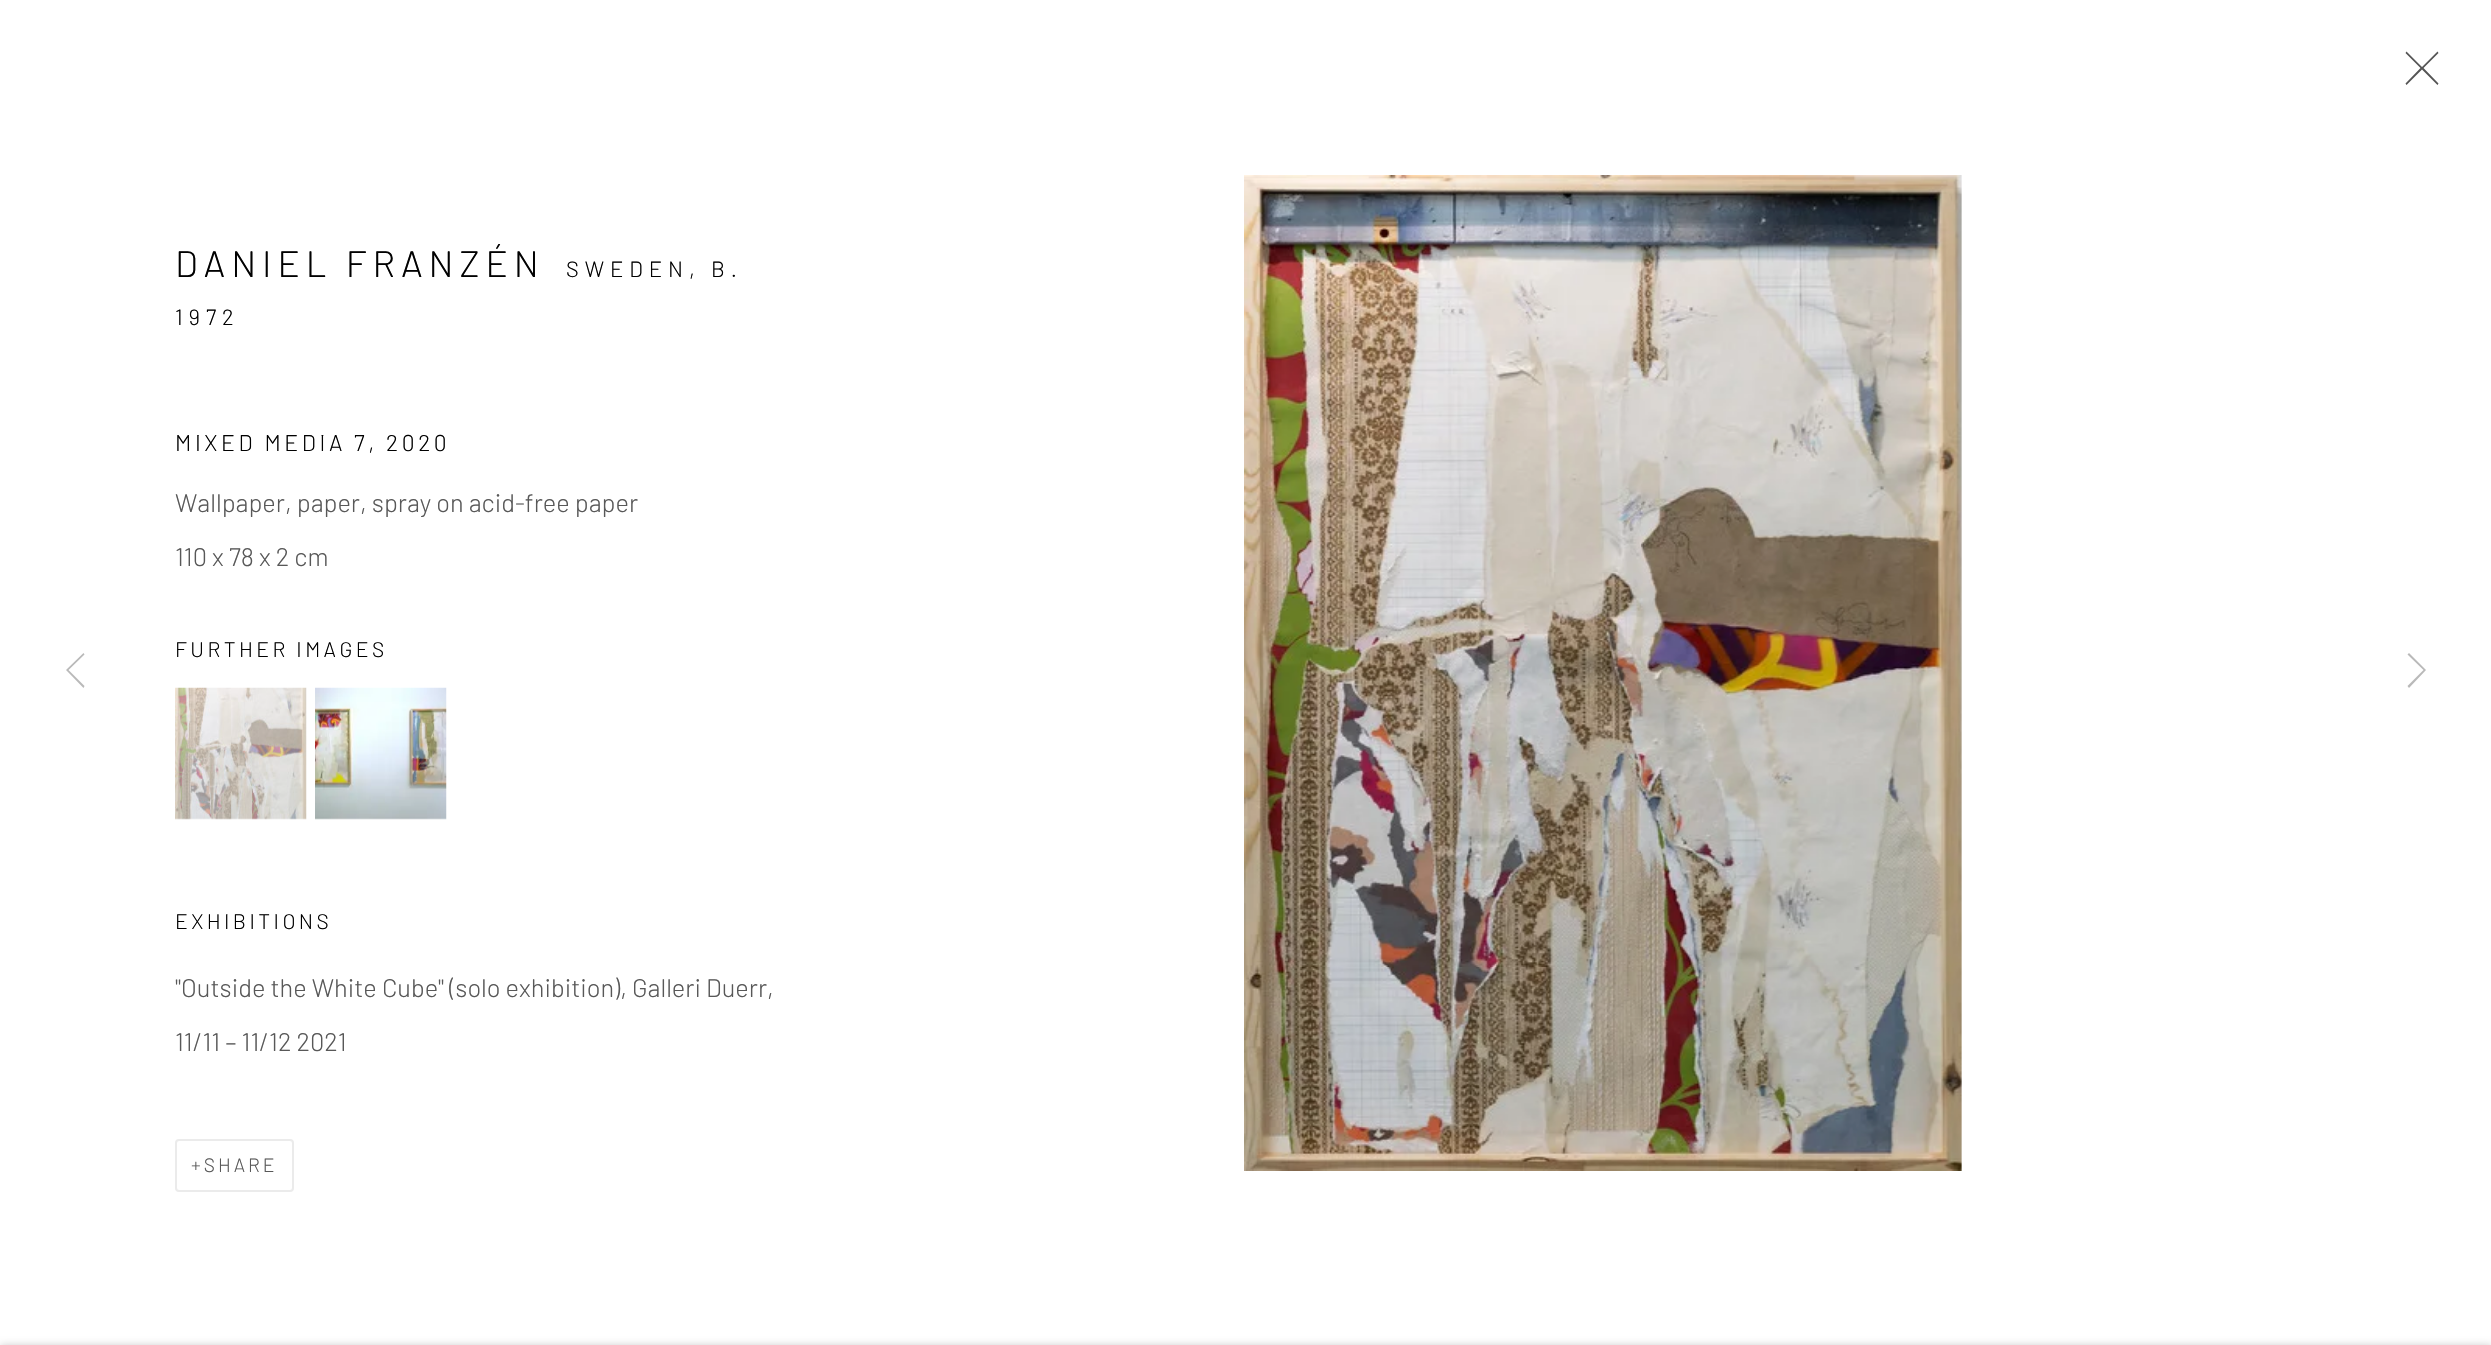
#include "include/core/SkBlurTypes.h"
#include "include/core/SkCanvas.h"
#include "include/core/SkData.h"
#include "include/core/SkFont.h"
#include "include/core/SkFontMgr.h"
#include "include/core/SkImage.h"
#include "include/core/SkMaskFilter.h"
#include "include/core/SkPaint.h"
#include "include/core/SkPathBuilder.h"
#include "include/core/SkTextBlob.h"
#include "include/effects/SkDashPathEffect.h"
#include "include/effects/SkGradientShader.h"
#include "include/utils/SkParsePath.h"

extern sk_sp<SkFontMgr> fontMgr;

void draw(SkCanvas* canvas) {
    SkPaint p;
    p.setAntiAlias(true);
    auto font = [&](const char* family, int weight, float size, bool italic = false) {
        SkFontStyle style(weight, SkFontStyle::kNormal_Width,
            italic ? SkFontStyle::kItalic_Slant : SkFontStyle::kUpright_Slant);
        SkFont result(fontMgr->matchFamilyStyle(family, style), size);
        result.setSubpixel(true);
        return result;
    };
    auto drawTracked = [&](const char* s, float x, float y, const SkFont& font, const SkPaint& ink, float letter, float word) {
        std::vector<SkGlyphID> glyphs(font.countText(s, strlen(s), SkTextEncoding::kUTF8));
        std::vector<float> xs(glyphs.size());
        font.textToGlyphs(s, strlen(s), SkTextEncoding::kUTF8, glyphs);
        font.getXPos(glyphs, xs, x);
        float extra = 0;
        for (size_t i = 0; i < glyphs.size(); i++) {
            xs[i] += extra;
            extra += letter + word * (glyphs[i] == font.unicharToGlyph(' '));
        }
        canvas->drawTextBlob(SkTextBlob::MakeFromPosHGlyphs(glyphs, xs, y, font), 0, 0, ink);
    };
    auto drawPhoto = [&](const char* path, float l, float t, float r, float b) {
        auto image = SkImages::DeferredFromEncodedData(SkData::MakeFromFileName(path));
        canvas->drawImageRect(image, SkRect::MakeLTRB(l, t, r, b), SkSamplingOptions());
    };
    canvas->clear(0xFFFFFFFF);
    p.setColor(0xFF555555);
    canvas->drawPath(SkPathBuilder().moveTo(2438.5f, 53).lineTo(2437.5f, 51.5f).lineTo(2422, 67).lineTo(2406.5f, 51.5f).lineTo(2405.5f, 53).lineTo(2420.5f, 68).lineTo(2405.5f, 83.5f).lineTo(2406.5f, 85).lineTo(2422, 69.5f).lineTo(2437.5f, 85).lineTo(2438.5f, 83.5f).lineTo(2423.5f, 68).close().detach(), p);
    auto font1 = font("Barlow", 300, 36.75f);
    p.setColor(0xFF010101);
    drawTracked("DANIEL FRANZÉN", 175, 277, font1, p, 5.9f, 0);
    auto font2 = font("Barlow", 300, 22);
    drawTracked("SWEDEN, B.", 566, 277, font2, p, 5.9f, 0);
    drawTracked("1972", 175, 325, font2, p, 5.9f, 0);
    auto font3 = font("Barlow", 300, 22.75f);
    drawTracked("MIXED MEDIA 7, 2020", 175, 451, font3, p, 3.6f, 0);
    auto font4 = font("Barlow", 300, 25.4f);
    p.setColor(0xFF585858);
    canvas->drawString("Wallpaper, paper, spray on acid-free paper", 175, 512, font4, p);
    canvas->drawString("110 x 78 x 2 cm", 175, 566, font4, p);
    auto font5 = font("Barlow", 300, 21);
    p.setColor(0xFF010101);
    drawTracked("FURTHER IMAGES", 175, 657, font5, p, 3.4f, 0);
    drawPhoto("media/1.png", 175, 687, 307, 820);
    drawPhoto("media/2.png", 315, 687, 447, 820);
    drawTracked("EXHIBITIONS", 175, 929, font5, p, 3.4f, 0);
    p.setColor(0xFF585858);
    canvas->drawString("\"Outside the White Cube\" (solo exhibition), Galleri Duerr,", 175, 997, font4, p);
    canvas->drawString("11/11 – 11/12 2021", 175, 1051, font4, p);
    p.setStyle(SkPaint::kStroke_Style);
    p.setStrokeWidth(2);
    p.setColor(0xFFEBEBEB);
    canvas->drawRoundRect(SkRect::MakeLTRB(176, 1140, 293, 1191), 3, 3, p);
    auto font6 = font("Barlow", 300, 19.25f);
    p.setStyle(SkPaint::kFill_Style);
    p.setColor(0xFF585858);
    drawTracked("+SHARE", 191, 1172, font6, p, 3, 0);
    drawPhoto("media/3.png", 1244, 175, 1962, 1171);
    p.setColor(0xFFB9B9B9);
    canvas->drawPath(SkPathBuilder().moveTo(67.5f, 671.5f).lineTo(83.5f, 688).lineTo(84.5f, 686).lineTo(68.5f, 670).lineTo(84.5f, 654.5f).lineTo(83.5f, 653).lineTo(66, 670).close().detach(), p);
    canvas->drawPath(SkPathBuilder().moveTo(2426, 670).lineTo(2409, 653).lineTo(2407.5f, 654.5f).lineTo(2423.5f, 670).lineTo(2407.5f, 686).lineTo(2409, 688).close().detach(), p);
    p.setColor(0x3B000000);
    p.setMaskFilter(SkMaskFilter::MakeBlur(kNormal_SkBlurStyle, 4.5f));
    canvas->drawRect(SkRect::MakeLTRB(0, 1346, 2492, 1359), p);
    p.setMaskFilter(nullptr);
}
